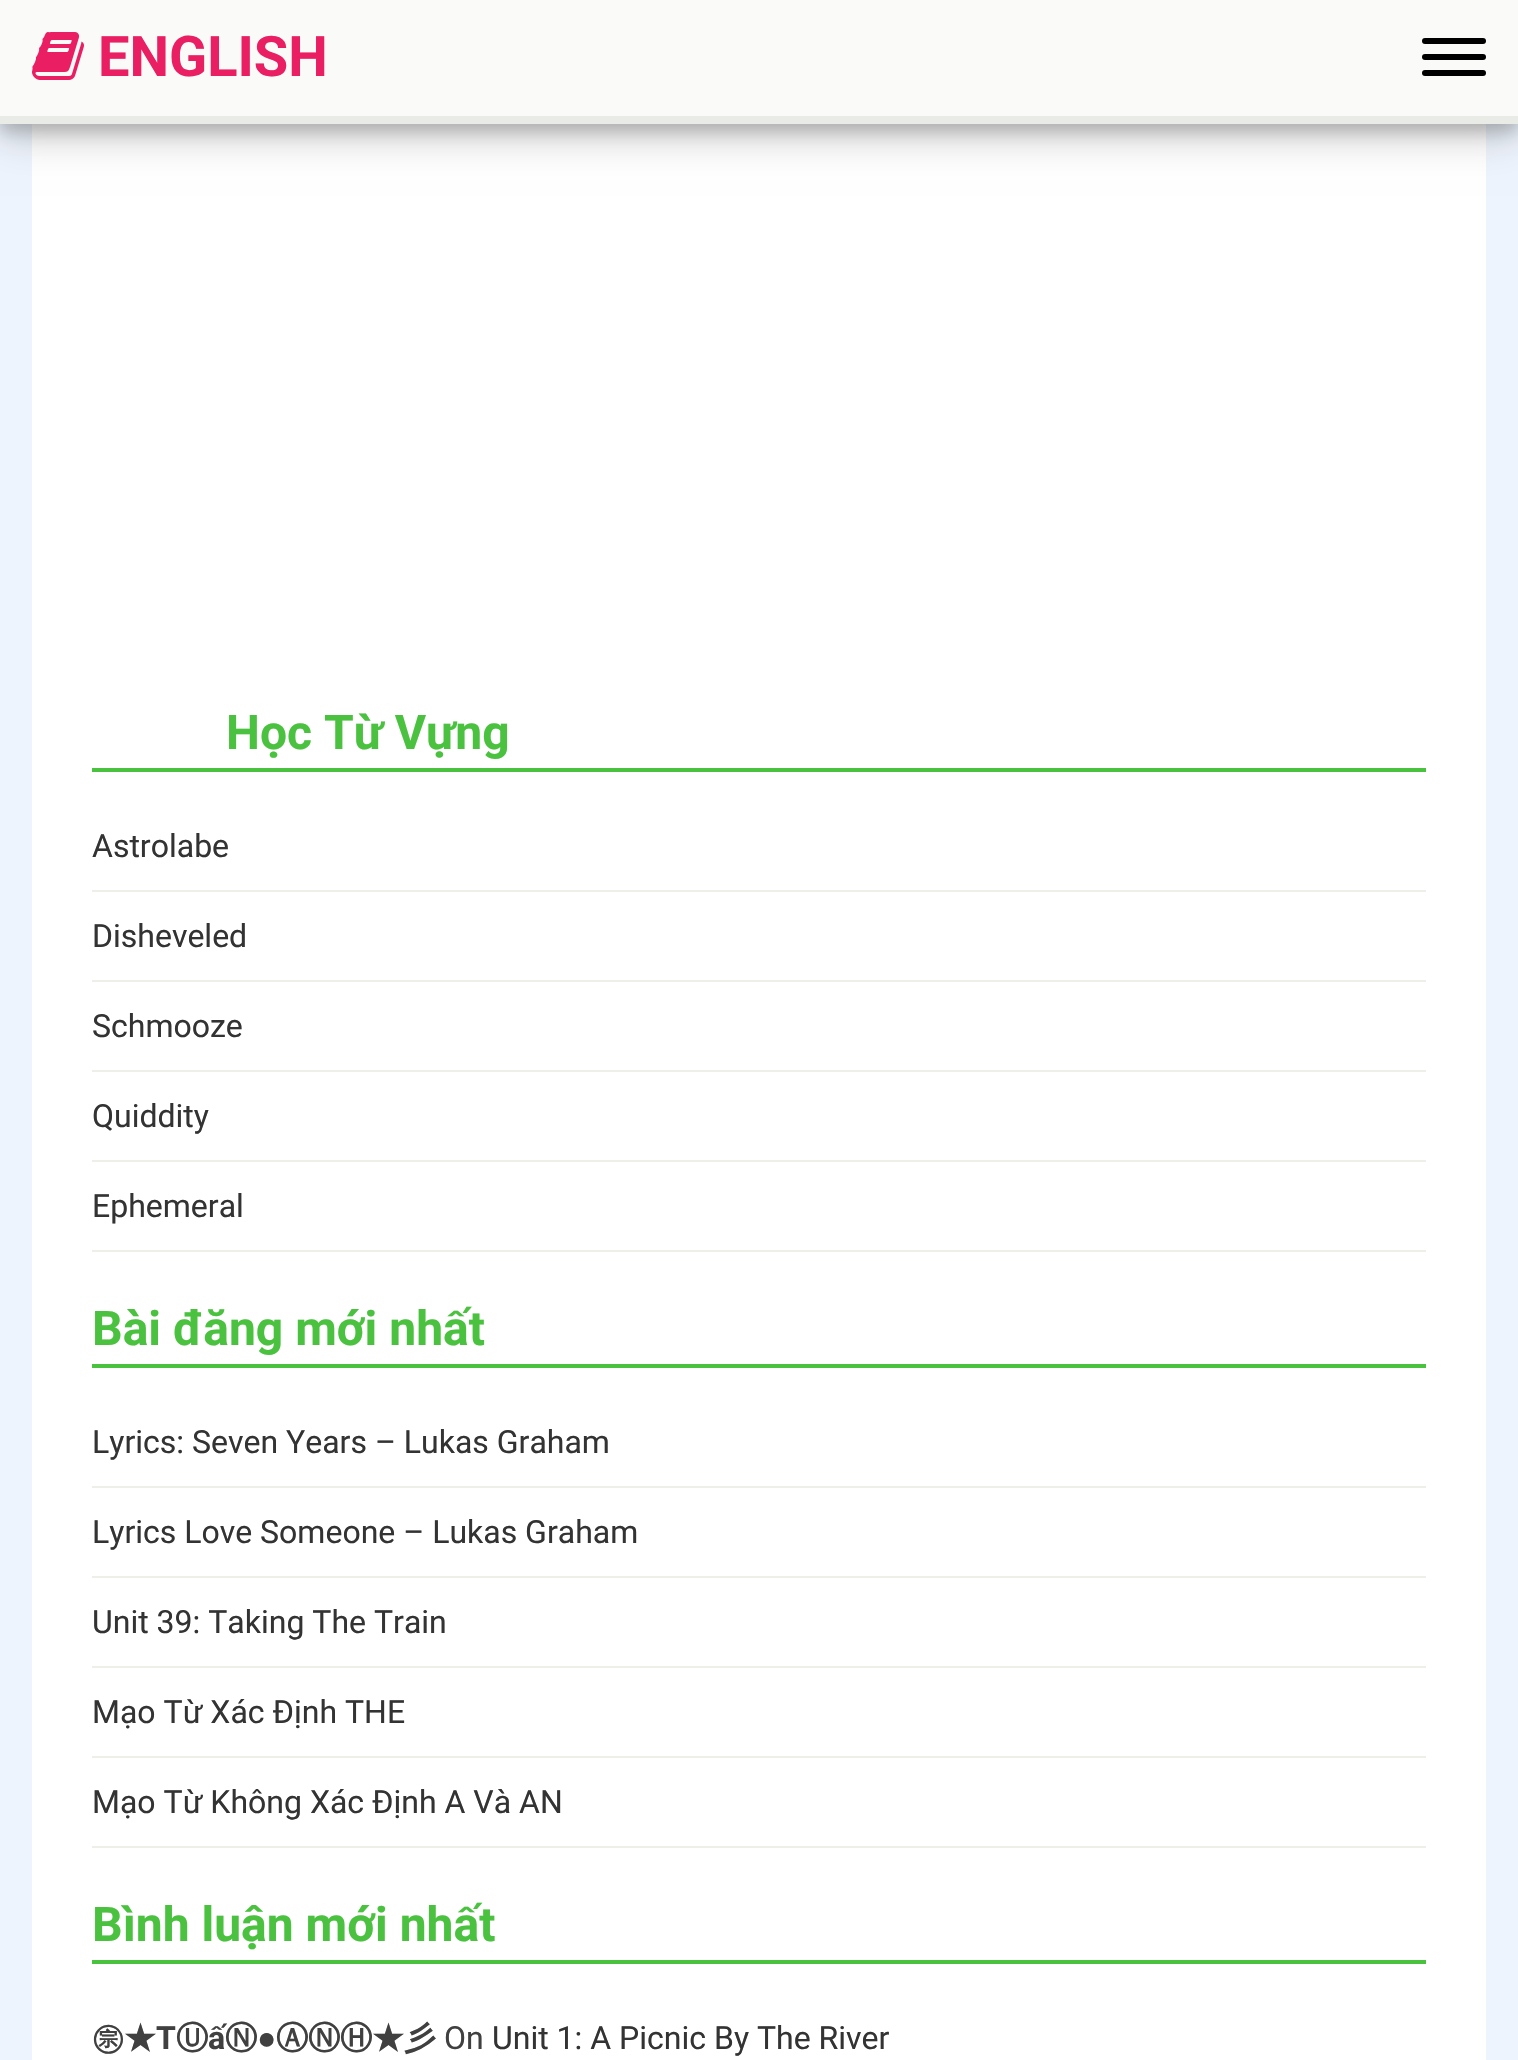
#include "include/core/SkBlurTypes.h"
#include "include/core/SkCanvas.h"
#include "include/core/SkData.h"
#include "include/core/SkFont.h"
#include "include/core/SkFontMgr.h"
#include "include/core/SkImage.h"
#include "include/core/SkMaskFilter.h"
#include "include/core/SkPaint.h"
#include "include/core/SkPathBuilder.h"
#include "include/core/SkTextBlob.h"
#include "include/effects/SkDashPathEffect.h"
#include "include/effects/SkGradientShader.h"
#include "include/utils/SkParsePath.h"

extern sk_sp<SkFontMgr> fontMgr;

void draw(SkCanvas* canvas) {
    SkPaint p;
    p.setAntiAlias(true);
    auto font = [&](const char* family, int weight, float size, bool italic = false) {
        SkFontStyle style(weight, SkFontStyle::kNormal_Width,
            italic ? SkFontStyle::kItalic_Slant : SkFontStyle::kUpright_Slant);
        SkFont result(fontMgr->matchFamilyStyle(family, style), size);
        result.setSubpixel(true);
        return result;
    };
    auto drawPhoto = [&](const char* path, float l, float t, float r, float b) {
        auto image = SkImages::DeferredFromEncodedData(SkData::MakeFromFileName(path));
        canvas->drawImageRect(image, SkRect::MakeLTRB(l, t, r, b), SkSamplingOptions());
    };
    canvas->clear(0xFFEEF4FD);
    p.setColor(0xFFFFFFFF);
    canvas->drawRect(SkRect::MakeLTRB(32, 124, 1486, 2060), p);
    p.setColor(0x30000000);
    p.setMaskFilter(SkMaskFilter::MakeBlur(kNormal_SkBlurStyle, 20));
    canvas->drawRect(SkRect::MakeLTRB(0, 12, 1518, 136), p);
    p.setMaskFilter(nullptr);
    p.setColor(0x33000000);
    p.setMaskFilter(SkMaskFilter::MakeBlur(kNormal_SkBlurStyle, 8));
    canvas->drawRect(SkRect::MakeLTRB(0, 8, 1518, 132), p);
    p.setMaskFilter(nullptr);
    p.setColor(0xFFFAFAF8);
    canvas->drawRect(SkRect::MakeLTRB(0, 0, 1518, 116), p);
    p.setColor(0xFFE9EBE6);
    canvas->drawRect(SkRect::MakeLTRB(0, 116, 1518, 124), p);
    drawPhoto("media/1.png", 32, 32, 84, 80);
    auto font1 = font("Roboto", 700, 56);
    p.setColor(0xFFE91E63);
    canvas->drawString("ENGLISH", 98, 76, font1, p);
    p.setColor(0xFF000000);
    canvas->drawRoundRect(SkRect::MakeLTRB(1422, 38, 1486, 44), 3, 3, p);
    canvas->drawRoundRect(SkRect::MakeLTRB(1422, 54, 1486, 60), 3, 3, p);
    canvas->drawRoundRect(SkRect::MakeLTRB(1422, 70, 1486, 76), 3, 3, p);
    p.setColor(0xFF4AC23F);
    canvas->drawRect(SkRect::MakeLTRB(92, 768, 1426, 772), p);
    auto font2 = font("Roboto", 700, 48);
    canvas->drawString("Học Từ Vựng", 226, 749, font2, p);
    p.setColor(0xFFF0EEE9);
    canvas->drawRect(SkRect::MakeLTRB(92, 890, 1426, 892), p);
    auto font3 = font("Roboto", 400, 32);
    p.setColor(0xFF333333);
    canvas->drawString("Astrolabe", 92, 857, font3, p);
    p.setColor(0xFFF0EEE9);
    canvas->drawRect(SkRect::MakeLTRB(92, 980, 1426, 982), p);
    p.setColor(0xFF333333);
    canvas->drawString("Disheveled", 92, 947, font3, p);
    p.setColor(0xFFF0EEE9);
    canvas->drawRect(SkRect::MakeLTRB(92, 1070, 1426, 1072), p);
    p.setColor(0xFF333333);
    canvas->drawString("Schmooze", 92, 1037, font3, p);
    p.setColor(0xFFF0EEE9);
    canvas->drawRect(SkRect::MakeLTRB(92, 1160, 1426, 1162), p);
    p.setColor(0xFF333333);
    canvas->drawString("Quiddity", 92, 1127, font3, p);
    p.setColor(0xFFF0EEE9);
    canvas->drawRect(SkRect::MakeLTRB(92, 1250, 1426, 1252), p);
    p.setColor(0xFF333333);
    canvas->drawString("Ephemeral", 92, 1217, font3, p);
    p.setColor(0xFF4AC23F);
    canvas->drawRect(SkRect::MakeLTRB(92, 1364, 1426, 1368), p);
    canvas->drawString("Bài đăng mới nhất", 92, 1345, font2, p);
    p.setColor(0xFFF0EEE9);
    canvas->drawRect(SkRect::MakeLTRB(92, 1486, 1426, 1488), p);
    p.setColor(0xFF333333);
    canvas->drawString("Lyrics: Seven Years – Lukas Graham", 92, 1453, font3, p);
    p.setColor(0xFFF0EEE9);
    canvas->drawRect(SkRect::MakeLTRB(92, 1576, 1426, 1578), p);
    p.setColor(0xFF333333);
    canvas->drawString("Lyrics Love Someone – Lukas Graham", 92, 1543, font3, p);
    p.setColor(0xFFF0EEE9);
    canvas->drawRect(SkRect::MakeLTRB(92, 1666, 1426, 1668), p);
    p.setColor(0xFF333333);
    canvas->drawString("Unit 39: Taking The Train", 92, 1633, font3, p);
    p.setColor(0xFFF0EEE9);
    canvas->drawRect(SkRect::MakeLTRB(92, 1756, 1426, 1758), p);
    p.setColor(0xFF333333);
    canvas->drawString("Mạo Từ Xác Định THE", 92, 1723, font3, p);
    p.setColor(0xFFF0EEE9);
    canvas->drawRect(SkRect::MakeLTRB(92, 1846, 1426, 1848), p);
    p.setColor(0xFF333333);
    canvas->drawString("Mạo Từ Không Xác Định A Và AN", 92, 1813, font3, p);
    p.setColor(0xFF4AC23F);
    canvas->drawRect(SkRect::MakeLTRB(92, 1960, 1426, 1964), p);
    canvas->drawString("Bình luận mới nhất", 92, 1941, font2, p);
    auto font4 = font("WenQuanYi Zen Hei", 700, 32);
    p.setColor(0xFF404040);
    canvas->drawString("㊪★", 92, 2049, font4, p);
    auto font5 = font("Roboto", 700, 32);
    canvas->drawString("T", 156, 2049, font5, p);
    canvas->drawString("Ⓤ", 176, 2049, font4, p);
    canvas->drawString("ấ", 208, 2049, font5, p);
    canvas->drawString("Ⓝ", 225, 2049, font4, p);
    auto font6 = font("Liberation Sans", 700, 32);
    canvas->drawString("●", 257, 2049, font6, p);
    canvas->drawString("ⒶⓃⒽ★彡", 276, 2049, font4, p);
    canvas->drawString("On", 444, 2049, font3, p);
    p.setColor(0xFF333333);
    canvas->drawString("Unit 1: A Picnic By The River", 492, 2049, font3, p);
}
